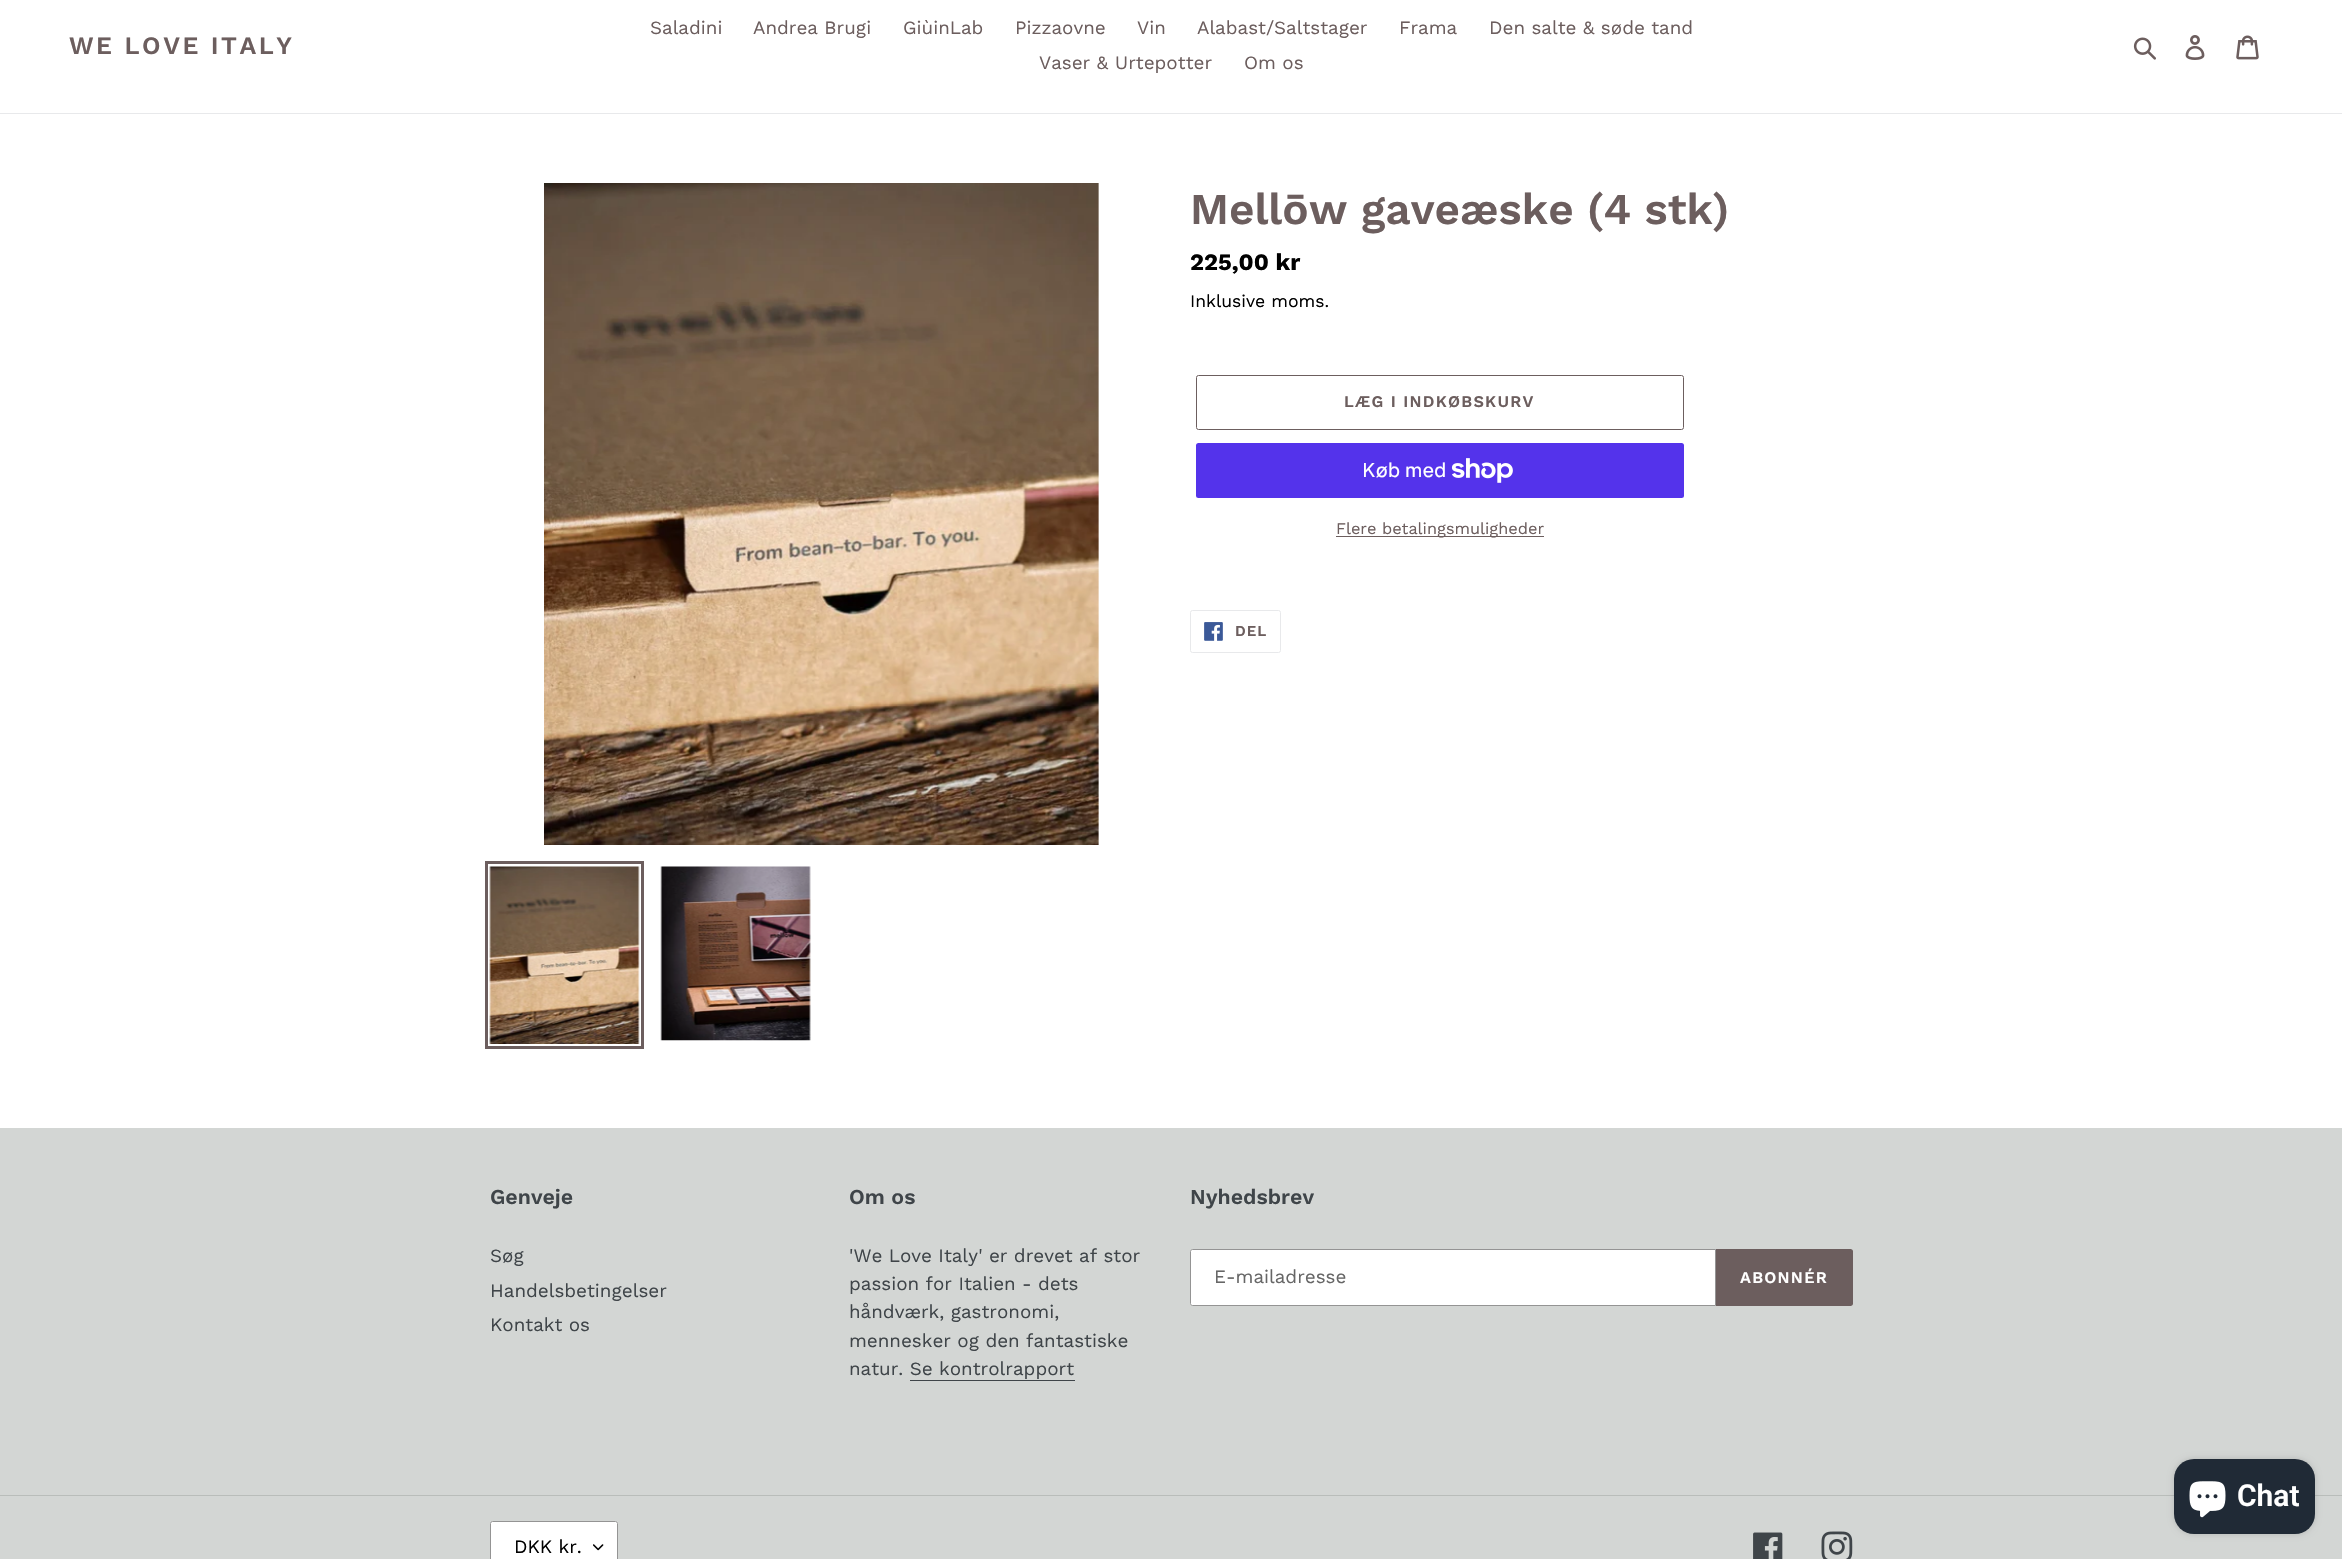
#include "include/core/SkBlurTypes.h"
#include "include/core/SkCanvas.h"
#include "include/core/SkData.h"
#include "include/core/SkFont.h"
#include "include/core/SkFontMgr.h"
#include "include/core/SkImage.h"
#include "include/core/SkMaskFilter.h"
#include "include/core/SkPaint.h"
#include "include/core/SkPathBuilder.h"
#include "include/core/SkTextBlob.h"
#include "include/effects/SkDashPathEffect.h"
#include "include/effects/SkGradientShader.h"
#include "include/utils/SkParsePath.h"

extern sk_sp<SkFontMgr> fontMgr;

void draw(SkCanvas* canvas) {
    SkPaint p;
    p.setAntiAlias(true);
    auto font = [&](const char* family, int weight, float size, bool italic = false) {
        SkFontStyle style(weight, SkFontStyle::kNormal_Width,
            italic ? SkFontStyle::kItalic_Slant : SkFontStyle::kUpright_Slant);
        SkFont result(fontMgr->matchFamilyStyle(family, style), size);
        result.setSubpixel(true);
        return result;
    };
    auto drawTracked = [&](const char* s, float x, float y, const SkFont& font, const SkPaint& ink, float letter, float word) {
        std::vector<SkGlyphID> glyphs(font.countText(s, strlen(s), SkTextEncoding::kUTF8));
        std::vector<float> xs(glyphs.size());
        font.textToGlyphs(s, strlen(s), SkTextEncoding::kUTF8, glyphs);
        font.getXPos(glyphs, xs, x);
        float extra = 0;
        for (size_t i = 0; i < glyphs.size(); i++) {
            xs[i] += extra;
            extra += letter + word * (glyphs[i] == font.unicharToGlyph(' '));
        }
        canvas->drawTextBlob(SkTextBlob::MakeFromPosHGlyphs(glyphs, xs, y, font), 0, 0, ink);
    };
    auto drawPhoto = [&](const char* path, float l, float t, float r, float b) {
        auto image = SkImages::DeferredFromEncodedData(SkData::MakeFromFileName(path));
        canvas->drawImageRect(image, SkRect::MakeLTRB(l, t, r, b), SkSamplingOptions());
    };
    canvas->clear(0xFFFFFFFF);
    p.setColor(0xFFE8E9EB);
    canvas->drawRect(SkRect::MakeLTRB(0, 113, 2342, 114), p);
    auto font1 = font("Work Sans", 600, 25);
    p.setColor(0xFF6C5E5E);
    drawTracked("WE LOVE ITALY", 69, 54, font1, p, 2.5f, 0);
    auto font2 = font("Work Sans", 400, 18.75f);
    {
        const struct { const char* s; float x, y; } items[] = {
            {"Saladini", 650, 34},
            {"Andrea Brugi", 753, 34},
            {"GiùinLab", 903, 34},
            {"Pizzaovne", 1015, 34},
            {"Vin", 1137, 34},
            {"Alabast/Saltstager", 1197, 34},
            {"Frama", 1399, 34},
            {"Den salte & søde tand", 1489, 34},
            {"Vaser & Urtepotter", 1039, 69},
            {"Om os", 1244, 69},
        };
        for (auto [s, x, y] : items) {
            canvas->drawString(s, x, y, font2, p);
        }
    }
    drawPhoto("media/1.png", 2133, 37, 2156, 60);
    drawPhoto("media/2.png", 2185, 35, 2205, 60);
    drawPhoto("media/3.png", 2236, 35, 2259, 60);
    drawPhoto("media/4.png", 544, 183, 1099, 845);
    p.setStyle(SkPaint::kStroke_Style);
    p.setStrokeWidth(3);
    canvas->drawRect(SkRect::MakeLTRB(486.5f, 862.5f, 642.5f, 1047.5f), p);
    drawPhoto("media/5.png", 489, 866, 640, 1044);
    drawPhoto("media/6.png", 660, 866, 811, 1041);
    auto font3 = font("Work Sans", 600, 43.75f);
    p.setStyle(SkPaint::kFill_Style);
    canvas->drawString("Mellōw gaveæske (4 stk)", 1190, 224, font3, p);
    auto font4 = font("Work Sans", 700, 23.5f);
    p.setColor(0xFF000000);
    canvas->drawString("225,00 kr", 1190, 270, font4, p);
    auto font5 = font("Work Sans", 400, 17.5f);
    canvas->drawString("Inklusive moms.", 1190, 307, font5, p);
    p.setStyle(SkPaint::kStroke_Style);
    p.setStrokeWidth(1);
    p.setColor(0xFF6C5E5E);
    canvas->drawRoundRect(SkRect::MakeLTRB(1196.5f, 375.5f, 1683.5f, 429.5f), 2, 2, p);
    auto font6 = font("Work Sans", 600, 16.25f);
    p.setStyle(SkPaint::kFill_Style);
    drawTracked("LÆG I INDKØBSKURV", 1344, 407, font6, p, 1.25f, 0);
    p.setColor(0xFF5433EB);
    canvas->drawRoundRect(SkRect::MakeLTRB(1196, 443, 1684, 498), 2.5f, 2.5f, p);
    auto font7 = font("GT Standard", 400, 20);
    p.setColor(0xFFFFFFFF);
    canvas->drawString("Køb med", 1362, 477, font7, p);
    drawPhoto("media/7.png", 1451, 458, 1513, 483);
    p.setColor(0xFF6C5E5E);
    canvas->drawRect(SkRect::MakeLTRB(1336, 536, 1544, 537), p);
    auto font8 = font("Work Sans", 400, 16.25f);
    canvas->drawString("Flere betalingsmuligheder", 1336, 534, font8, p);
    p.setStyle(SkPaint::kStroke_Style);
    p.setColor(0xFFE8E9EB);
    canvas->drawRoundRect(SkRect::MakeLTRB(1190.5f, 610.5f, 1280.5f, 652.5f), 2, 2, p);
    drawPhoto("media/8.png", 1204, 622, 1223, 641);
    auto font9 = font("Work Sans", 600, 15);
    p.setStyle(SkPaint::kFill_Style);
    p.setColor(0xFF6C5E5E);
    drawTracked("DEL", 1235, 636, font9, p, 1, 0);
    p.setColor(0xFFD3D6D4);
    canvas->drawRect(SkRect::MakeLTRB(0, 1128, 2342, 1559), p);
    auto font10 = font("Work Sans", 600, 21.25f);
    p.setColor(0xFF3F4549);
    canvas->drawString("Genveje", 490, 1204, font10, p);
    {
        const struct { const char* s; float x, y; } items[] = {
            {"Søg", 490, 1262},
            {"Handelsbetingelser", 490, 1297},
            {"Kontakt os", 490, 1331},
        };
        for (auto [s, x, y] : items) {
            canvas->drawString(s, x, y, font2, p);
        }
    }
    canvas->drawString("Om os", 849, 1204, font10, p);
    {
        const struct { const char* s; float x, y; } items[] = {
            {"'We Love Italy' er drevet af stor", 849, 1262},
            {"passion for Italien - dets", 849, 1290},
            {"håndværk, gastronomi,", 849, 1318},
            {"mennesker og den fantastiske", 849, 1347},
            {"natur. Se kontrolrapport", 849, 1375},
        };
        for (auto [s, x, y] : items) {
            canvas->drawString(s, x, y, font2, p);
        }
    }
    canvas->drawRect(SkRect::MakeLTRB(910, 1380, 1075, 1381), p);
    canvas->drawString("Nyhedsbrev", 1190, 1204, font10, p);
    p.setColor(0xFFFFFFFF);
    canvas->drawPath(SkPathBuilder().moveTo(1192.5f, 1249.5f).lineTo(1715.5f, 1249.5f).lineTo(1715.5f, 1305.5f).lineTo(1192.5f, 1305.5f).cubicTo(1191.5f, 1305.5f, 1190.5f, 1304.5f, 1190.5f, 1303.5f).lineTo(1190.5f, 1251.5f).cubicTo(1190.5f, 1250.5f, 1191.5f, 1249.5f, 1192.5f, 1249.5f).close().detach(), p);
    p.setStyle(SkPaint::kStroke_Style);
    p.setColor(0xFF949494);
    canvas->drawPath(SkPathBuilder().moveTo(1192.5f, 1249.5f).lineTo(1715.5f, 1249.5f).lineTo(1715.5f, 1305.5f).lineTo(1192.5f, 1305.5f).cubicTo(1191.5f, 1305.5f, 1190.5f, 1304.5f, 1190.5f, 1303.5f).lineTo(1190.5f, 1251.5f).cubicTo(1190.5f, 1250.5f, 1191.5f, 1249.5f, 1192.5f, 1249.5f).close().detach(), p);
    p.setStyle(SkPaint::kFill_Style);
    p.setColor(0xFF666666);
    canvas->drawString("E-mailadresse", 1214, 1283, font2, p);
    p.setColor(0xFF6C5E5E);
    canvas->drawPath(SkPathBuilder().moveTo(1716, 1249).lineTo(1850.5f, 1249).cubicTo(1852, 1249, 1853, 1250, 1853, 1251.5f).lineTo(1853, 1303.5f).cubicTo(1853, 1305, 1852, 1306, 1850.5f, 1306).lineTo(1716, 1306).close().detach(), p);
    p.setColor(0xFFFFFFFF);
    drawTracked("ABONNÉR", 1740, 1283, font6, p, 1.25f, 0);
    p.setColor(0xFFB9BDBA);
    canvas->drawRect(SkRect::MakeLTRB(0, 1495, 2342, 1496), p);
    p.setColor(0xFFFFFFFF);
    canvas->drawRoundRect(SkRect::MakeLTRB(490, 1521, 618, 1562), 2.5f, 2.5f, p);
    drawPhoto("media/9.png", 593, 1544, 604, 1551);
    p.setStyle(SkPaint::kStroke_Style);
    p.setColor(0xFF949494);
    canvas->drawRoundRect(SkRect::MakeLTRB(490.5f, 1521.5f, 617.5f, 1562.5f), 2, 2, p);
    p.setStyle(SkPaint::kFill_Style);
    p.setColor(0xFF000000);
    canvas->drawString("DKK kr.", 514, 1553, font2, p);
    drawPhoto("media/10.png", 1753, 1532, 1783, 1559);
    drawPhoto("media/11.png", 1821, 1531, 1853, 1559);
    p.setColor(0x26000000);
    p.setMaskFilter(SkMaskFilter::MakeBlur(kNormal_SkBlurStyle, 3));
    canvas->drawRoundRect(SkRect::MakeLTRB(2174, 1459, 2315, 1534), 20, 20, p);
    p.setMaskFilter(nullptr);
    p.setColor(0xFF202A36);
    canvas->drawRoundRect(SkRect::MakeLTRB(2174, 1459, 2315, 1534), 20, 20, p);
    drawPhoto("media/12.png", 2189, 1481, 2226, 1518);
    auto font11 = font("Roboto", 600, 30);
    p.setColor(0xFFFFFFFF);
    canvas->drawString("Chat", 2237, 1506, font11, p);
}
